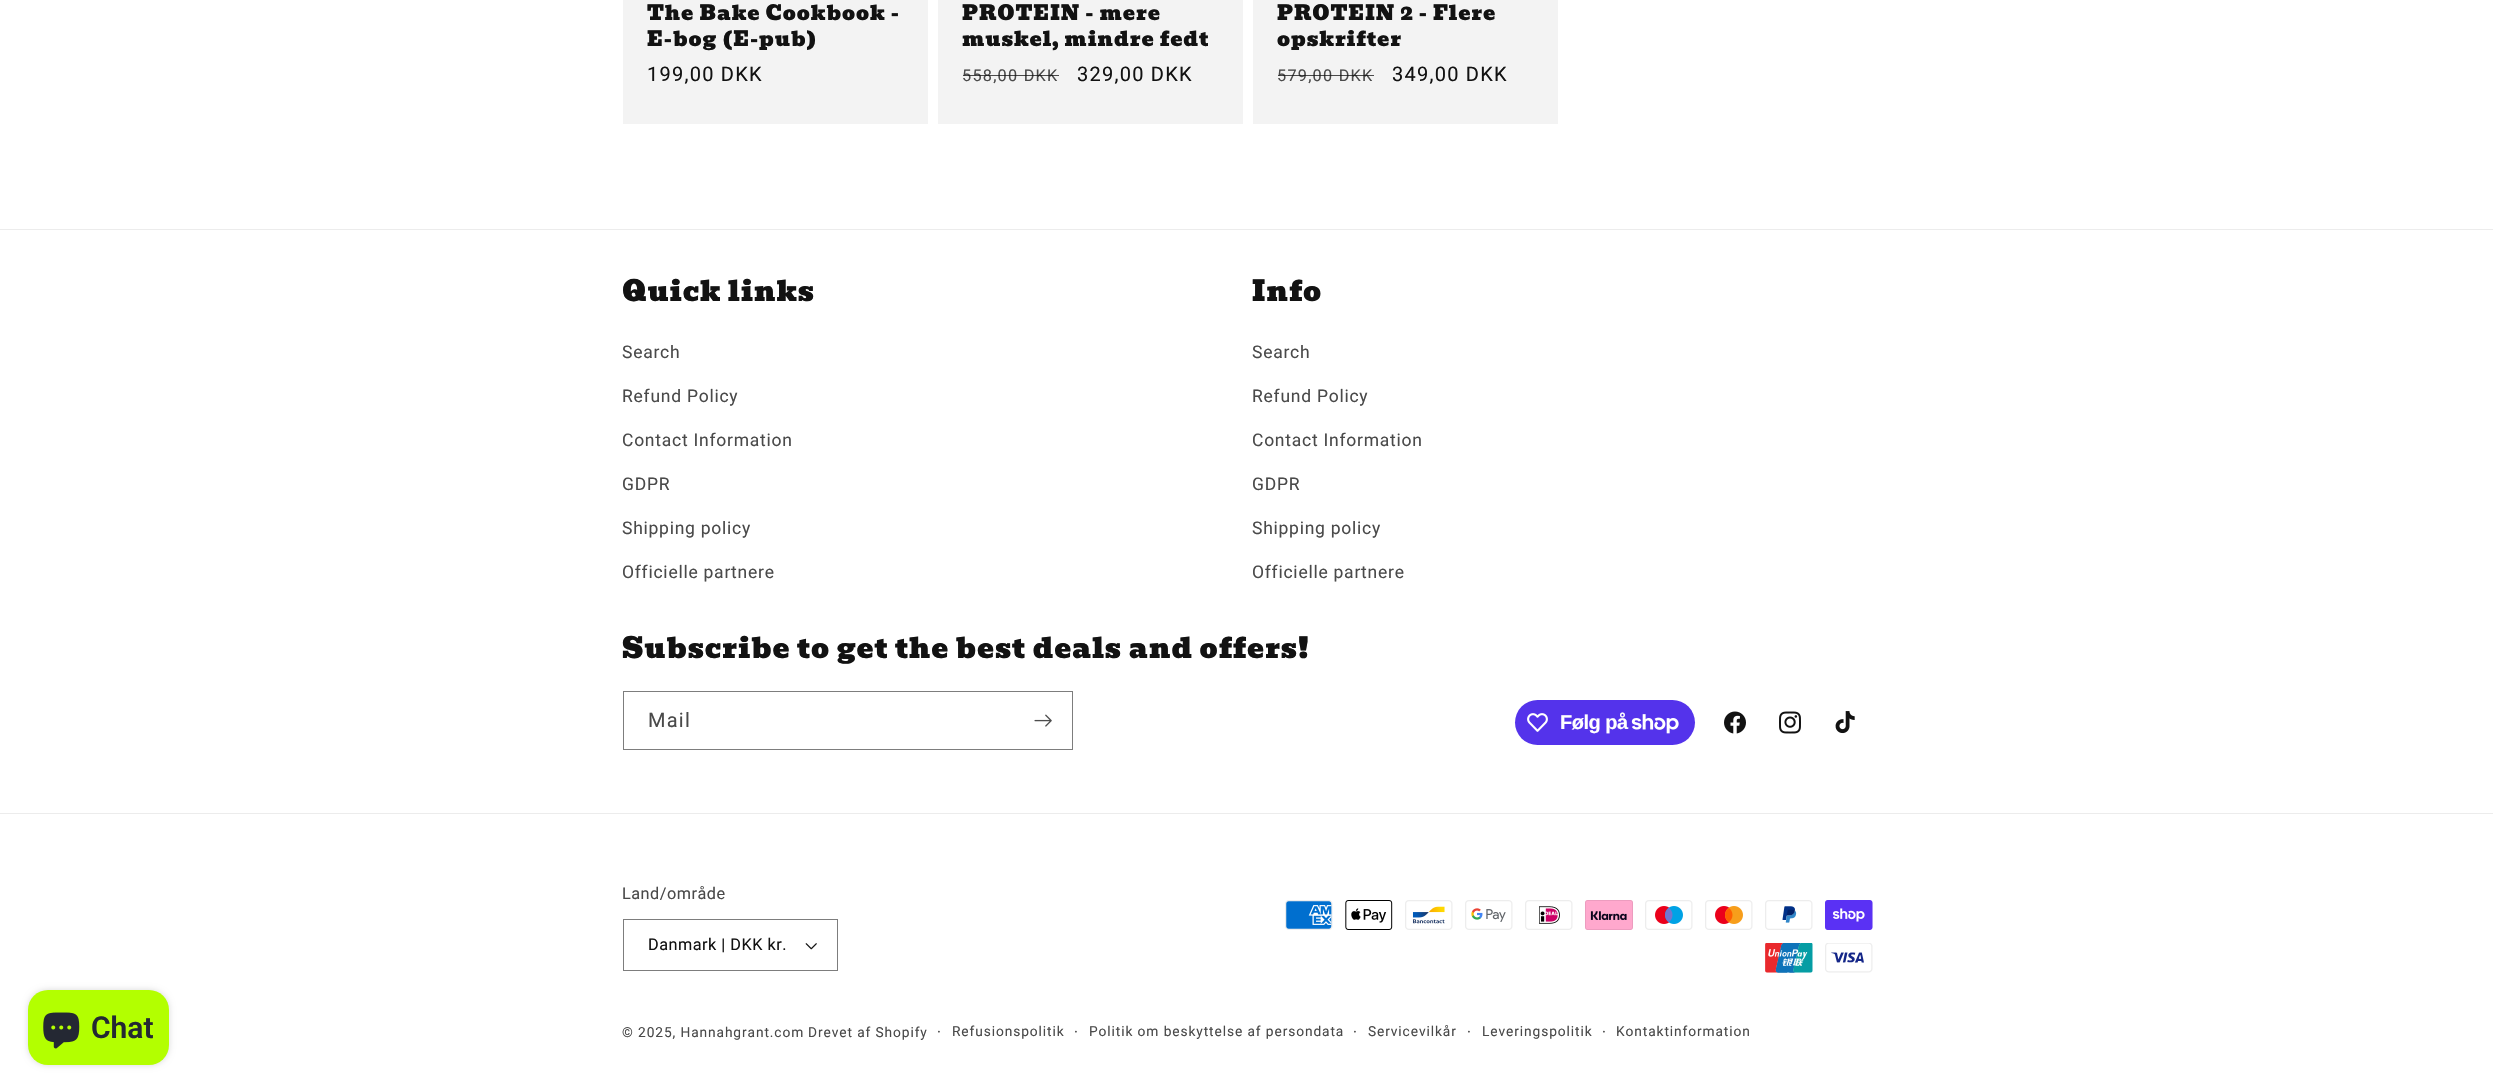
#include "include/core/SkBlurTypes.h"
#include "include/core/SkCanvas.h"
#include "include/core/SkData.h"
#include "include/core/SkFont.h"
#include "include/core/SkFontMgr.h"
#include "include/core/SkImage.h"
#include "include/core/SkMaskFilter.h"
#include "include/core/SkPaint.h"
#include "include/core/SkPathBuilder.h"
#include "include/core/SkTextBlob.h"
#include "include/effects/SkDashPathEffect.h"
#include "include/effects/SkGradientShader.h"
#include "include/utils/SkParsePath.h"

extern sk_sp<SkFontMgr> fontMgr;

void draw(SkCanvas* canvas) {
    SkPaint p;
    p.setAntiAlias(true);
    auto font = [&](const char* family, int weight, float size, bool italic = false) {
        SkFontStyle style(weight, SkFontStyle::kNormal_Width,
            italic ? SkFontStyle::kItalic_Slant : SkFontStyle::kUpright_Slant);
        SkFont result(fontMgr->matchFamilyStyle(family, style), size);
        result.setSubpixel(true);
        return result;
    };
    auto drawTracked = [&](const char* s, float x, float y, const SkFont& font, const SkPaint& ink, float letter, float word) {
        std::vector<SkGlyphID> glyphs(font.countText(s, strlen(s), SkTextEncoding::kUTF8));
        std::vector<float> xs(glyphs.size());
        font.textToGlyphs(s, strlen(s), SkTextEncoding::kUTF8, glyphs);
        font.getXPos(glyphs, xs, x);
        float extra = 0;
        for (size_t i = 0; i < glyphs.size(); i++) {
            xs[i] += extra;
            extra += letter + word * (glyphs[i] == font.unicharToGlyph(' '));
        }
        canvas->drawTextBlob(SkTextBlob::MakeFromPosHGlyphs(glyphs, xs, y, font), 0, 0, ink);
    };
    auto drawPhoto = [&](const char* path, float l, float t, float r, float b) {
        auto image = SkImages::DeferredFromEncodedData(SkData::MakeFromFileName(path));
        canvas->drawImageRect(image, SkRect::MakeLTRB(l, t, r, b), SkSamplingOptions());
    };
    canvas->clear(0xFFFFFFFF);
    p.setColor(0xFFF3F3F3);
    canvas->drawRect(SkRect::MakeLTRB(623, 0, 928, 124), p);
    auto font1 = font("Bevan", 400, 20.25f);
    p.setColor(0xFF121212);
    drawTracked("The Bake Cookbook -", 647, 20, font1, p, 0.95f, 0);
    drawTracked("E-bog (E-pub)", 647, 46, font1, p, 0.95f, 0);
    auto font2 = font("Roboto", 400, 20);
    drawTracked("199,00 DKK", 647, 81, font2, p, 1.25f, 0);
    p.setColor(0xFFF3F3F3);
    canvas->drawRect(SkRect::MakeLTRB(938, 0, 1243, 124), p);
    p.setColor(0xFF121212);
    drawTracked("PROTEIN - mere", 962, 20, font1, p, 0.95f, 0);
    drawTracked("muskel, mindre fedt", 962, 46, font1, p, 0.95f, 0);
    auto font3 = font("Roboto", 400, 16.25f);
    p.setColor(0xFF4A4A4A);
    drawTracked("558,00 DKK", 962, 81, font3, p, 1.25f, 0);
    p.setColor(0xBF121212);
    canvas->drawRect(SkRect::MakeLTRB(963, 75, 1059, 76), p);
    p.setColor(0xFF121212);
    drawTracked("329,00 DKK", 1077, 81, font2, p, 1.25f, 0);
    p.setColor(0xFFF3F3F3);
    canvas->drawRect(SkRect::MakeLTRB(1253, 0, 1558, 124), p);
    p.setColor(0xFF121212);
    drawTracked("PROTEIN 2 - Flere", 1277, 20, font1, p, 0.95f, 0);
    drawTracked("opskrifter", 1277, 46, font1, p, 0.95f, 0);
    p.setColor(0xFF4A4A4A);
    drawTracked("579,00 DKK", 1277, 81, font3, p, 1.25f, 0);
    p.setColor(0xBF121212);
    canvas->drawRect(SkRect::MakeLTRB(1278, 75, 1374, 76), p);
    p.setColor(0xFF121212);
    drawTracked("349,00 DKK", 1392, 81, font2, p, 1.25f, 0);
    p.setColor(0x26000000);
    p.setMaskFilter(SkMaskFilter::MakeBlur(kNormal_SkBlurStyle, 3));
    canvas->drawRoundRect(SkRect::MakeLTRB(28, 990, 169, 1065), 20, 20, p);
    p.setMaskFilter(nullptr);
    p.setColor(0xFFB3FF00);
    canvas->drawRoundRect(SkRect::MakeLTRB(28, 990, 169, 1065), 20, 20, p);
    drawPhoto("media/1.png", 43, 1012, 80, 1049);
    auto font4 = font("Roboto", 600, 30);
    p.setColor(0xFF242833);
    canvas->drawString("Chat", 91, 1038, font4, p);
    p.setColor(0xFFECECEC);
    canvas->drawRect(SkRect::MakeLTRB(0, 229, 2493, 230), p);
    auto font5 = font("Bevan", 400, 28.1f);
    p.setColor(0xFF121212);
    drawTracked("Quick links", 622, 301, font5, p, 0.95f, 0);
    auto font6 = font("Roboto", 400, 17.5f);
    p.setColor(0xFF4A4A4A);
    {
        const struct { const char* s; float x, y; } items[] = {
            {"Search", 622, 358},
            {"Refund Policy", 622, 402},
            {"Contact Information", 622, 446},
            {"GDPR", 622, 490},
            {"Shipping policy", 622, 534},
            {"Officielle partnere", 622, 578},
        };
        for (auto [s, x, y] : items) {
            drawTracked(s, x, y, font6, p, 0.75f, 0);
        }
    }
    p.setColor(0xFF121212);
    drawTracked("Info", 1252, 301, font5, p, 0.95f, 0);
    p.setColor(0xFF4A4A4A);
    {
        const struct { const char* s; float x, y; } items[] = {
            {"Search", 1252, 358},
            {"Refund Policy", 1252, 402},
            {"Contact Information", 1252, 446},
            {"GDPR", 1252, 490},
            {"Shipping policy", 1252, 534},
            {"Officielle partnere", 1252, 578},
        };
        for (auto [s, x, y] : items) {
            drawTracked(s, x, y, font6, p, 0.75f, 0);
        }
    }
    p.setColor(0xFF121212);
    drawTracked("Subscribe to get the best deals and offers!", 622, 658, font5, p, 0.95f, 0);
    p.setStyle(SkPaint::kStroke_Style);
    p.setStrokeWidth(1);
    p.setColor(0xFF7D7D7D);
    canvas->drawRect(SkRect::MakeLTRB(623.5f, 691.5f, 1072.5f, 749.5f), p);
    p.setStyle(SkPaint::kFill_Style);
    p.setColor(0xFF4A4A4A);
    drawTracked("Mail", 648, 727, font2, p, 1.25f, 0);
    drawPhoto("media/2.png", 1034, 714, 1052, 727);
    p.setColor(0xFF5433EB);
    canvas->drawRoundRect(SkRect::MakeLTRB(1515, 700, 1695, 745), 22.5f, 22.5f, p);
    drawPhoto("media/3.png", 1527, 713, 1548, 732);
    auto font7 = font("Liberation Sans", 700, 20);
    p.setColor(0xFFFFFFFF);
    drawTracked("Følg på", 1560, 729, font7, p, -0.5f, 0);
    drawPhoto("media/4.png", 1631, 714, 1679, 734);
    drawPhoto("media/5.png", 1724, 711, 1746, 734);
    drawPhoto("media/6.png", 1779, 711, 1801, 734);
    drawPhoto("media/7.png", 1835, 711, 1855, 734);
    p.setColor(0xFFECECEC);
    canvas->drawRect(SkRect::MakeLTRB(0, 813, 2493, 814), p);
    p.setColor(0xFF4A4A4A);
    drawTracked("Land/område", 622, 899, font3, p, 0.5f, 0);
    drawPhoto("media/8.png", 805, 943, 817, 950);
    p.setStyle(SkPaint::kStroke_Style);
    p.setColor(0xFF7D7D7D);
    canvas->drawRect(SkRect::MakeLTRB(623.5f, 919.5f, 837.5f, 970.5f), p);
    p.setStyle(SkPaint::kFill_Style);
    p.setColor(0xFF121212);
    drawTracked("Danmark | DKK kr.", 648, 950, font3, p, 0.5f, 0);
    drawPhoto("media/9.png", 1285, 900, 1333, 930);
    drawPhoto("media/10.png", 1345, 900, 1393, 930);
    drawPhoto("media/11.png", 1405, 900, 1453, 930);
    drawPhoto("media/12.png", 1465, 900, 1513, 930);
    drawPhoto("media/13.png", 1525, 900, 1573, 930);
    drawPhoto("media/14.png", 1585, 900, 1633, 930);
    drawPhoto("media/15.png", 1645, 900, 1693, 930);
    drawPhoto("media/16.png", 1705, 900, 1753, 930);
    drawPhoto("media/17.png", 1765, 900, 1813, 930);
    drawPhoto("media/18.png", 1825, 900, 1873, 930);
    drawPhoto("media/19.png", 1765, 943, 1813, 973);
    drawPhoto("media/20.png", 1825, 943, 1873, 973);
    auto font8 = font("Roboto", 400, 13.75f);
    p.setColor(0xFF4A4A4A);
    drawTracked("© 2025, Hannahgrant.com", 622, 1037, font8, p, 0.9f, 0);
    drawTracked("Drevet af Shopify", 808, 1037, font8, p, 0.9f, 0);
    auto font9 = font("Roboto", 400, 15);
    drawTracked("·", 937, 1037, font9, p, 0.9f, 0);
    drawTracked("Refusionspolitik", 952, 1036, font8, p, 0.9f, 0);
    drawTracked("·", 1074, 1037, font9, p, 0.9f, 0);
    drawTracked("Politik om beskyttelse af persondata", 1089, 1036, font8, p, 0.9f, 0);
    drawTracked("·", 1353, 1037, font9, p, 0.9f, 0);
    drawTracked("Servicevilkår", 1368, 1036, font8, p, 0.9f, 0);
    drawTracked("·", 1467, 1037, font9, p, 0.9f, 0);
    drawTracked("Leveringspolitik", 1482, 1036, font8, p, 0.9f, 0);
    drawTracked("·", 1602, 1037, font9, p, 0.9f, 0);
    drawTracked("Kontaktinformation", 1616, 1036, font8, p, 0.9f, 0);
}
